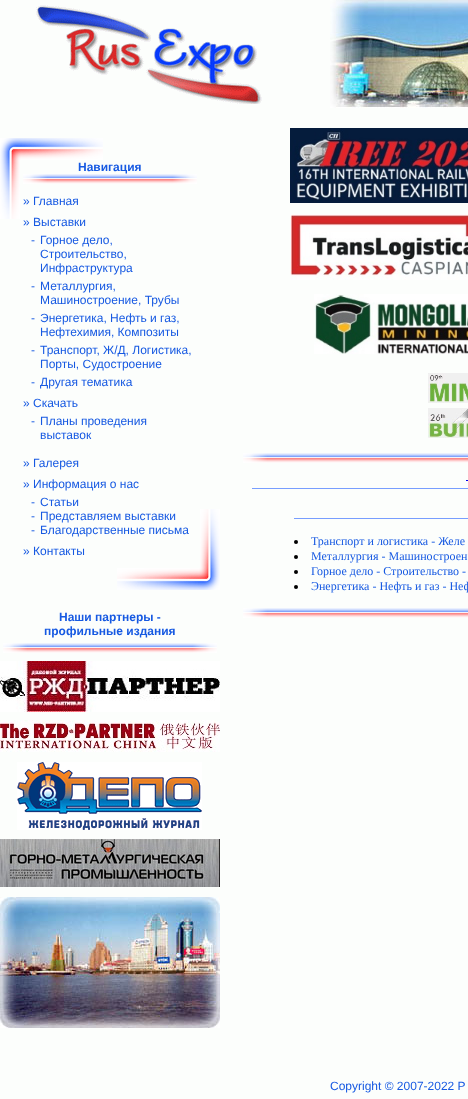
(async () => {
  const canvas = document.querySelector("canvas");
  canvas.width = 468;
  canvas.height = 1099;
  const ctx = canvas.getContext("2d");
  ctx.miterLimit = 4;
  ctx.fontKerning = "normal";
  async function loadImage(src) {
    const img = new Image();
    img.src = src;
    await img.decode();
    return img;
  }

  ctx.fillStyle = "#fcfefc";
  ctx.fillRect(0, 0, 468, 1099);
  ctx.drawImage(await loadImage("img/1.png"), 36, 5, 226, 99);
  ctx.drawImage(await loadImage("img/2.png"), 330, 0, 138, 108);
  ctx.drawImage(await loadImage("img/3.png"), 0, 138, 103, 22);
  ctx.drawImage(await loadImage("img/4.png"), 0, 160, 20, 59);
  ctx.drawImage(await loadImage("img/5.png"), 23, 174, 24, 10);
  ctx.drawImage(await loadImage("img/6.png"), 47, 174, 126, 10);
  ctx.drawImage(await loadImage("img/7.png"), 173, 174, 24, 10);
  ctx.drawImage(await loadImage("img/8.png"), 200, 509, 20, 59);
  ctx.drawImage(await loadImage("img/9.png"), 117, 568, 103, 22);
  ctx.drawImage(await loadImage("img/5.png"), 3, 643, 24, 10);
  ctx.drawImage(await loadImage("img/10.png"), 27, 643, 166, 10);
  ctx.drawImage(await loadImage("img/7.png"), 193, 643, 24, 10);
  ctx.drawImage(await loadImage("img/11.png"), 0, 661, 220, 51);
  ctx.drawImage(await loadImage("img/12.png"), 0, 720, 220, 32);
  ctx.drawImage(await loadImage("img/13.png"), 17, 762, 185, 68);
  ctx.drawImage(await loadImage("img/14.png"), 0, 839, 220, 48);
  ctx.drawImage(await loadImage("img/15.png"), 0, 897, 220, 131);
  ctx.drawImage(await loadImage("img/16.png"), 290, 128, 178, 75);
  ctx.drawImage(await loadImage("img/17.png"), 290, 214, 178, 66);
  ctx.drawImage(await loadImage("img/18.png"), 314, 294, 154, 60);
  ctx.drawImage(await loadImage("img/19.png"), 428, 373, 40, 30);
  ctx.drawImage(await loadImage("img/20.png"), 428, 408, 40, 30);
  ctx.drawImage(await loadImage("img/5.png"), 243, 453, 24, 10);
  ctx.drawImage(await loadImage("img/21.png"), 267, 453, 201, 10);
  for (const [x, y, w, h, color] of [
    [466, 480, 2, 1, "#0000ee"],
    [252, 488, 216, 1, "#789eff"],
    [294, 518, 174, 1, "#789eff"],
  ]) {
    ctx.fillStyle = color;
    ctx.fillRect(x, y, w, h);
  }
  ctx.fillStyle = "#000000";
  ctx.beginPath();
  ctx.arc(296, 542, 2, 0, Math.PI * 2);
  ctx.fill();
  ctx.beginPath();
  ctx.arc(296, 557, 2, 0, Math.PI * 2);
  ctx.fill();
  ctx.beginPath();
  ctx.arc(296, 572, 2, 0, Math.PI * 2);
  ctx.fill();
  ctx.beginPath();
  ctx.arc(296, 587, 2, 0, Math.PI * 2);
  ctx.fill();
  ctx.drawImage(await loadImage("img/5.png"), 243, 608, 24, 10);
  ctx.drawImage(await loadImage("img/21.png"), 267, 608, 201, 10);
  ctx.font = "bold 12px Liberation Sans";
  ctx.fillStyle = "#1659e2";
  ctx.fillText("Навигация", 78, 171);
  ctx.font = "12px Liberation Sans";
  for (const [text, x, y] of [
    ["» Главная", 23, 205],
    ["» Выставки", 23, 226],
    ["-", 31, 244],
    ["Горное дело,", 40, 244],
    ["Строительство,", 40, 258],
    ["Инфраструктура", 40, 272],
    ["-", 31, 290],
    ["Металлургия,", 40, 290],
    ["Машиностроение, Трубы", 40, 304],
    ["-", 31, 322],
    ["Энергетика, Нефть и газ,", 40, 322],
    ["Нефтехимия, Композиты", 40, 336],
    ["-", 31, 354],
    ["Транспорт, Ж/Д, Логистика,", 40, 354],
    ["Порты, Судостроение", 40, 368],
    ["-", 31, 386],
    ["Другая тематика", 40, 386],
    ["» Скачать", 23, 407],
    ["-", 31, 425],
    ["Планы проведения", 40, 425],
    ["выставок", 40, 439],
    ["» Галерея", 23, 467],
    ["» Информация о нас", 23, 488],
    ["-", 31, 506],
    ["Статьи", 40, 506],
    ["-", 31, 520],
    ["Представляем выставки", 40, 520],
    ["-", 31, 534],
    ["Благодарственные письма", 40, 534],
    ["» Контакты", 23, 555],
  ]) {
    ctx.fillText(text, x, y);
  }
  ctx.font = "bold 12px Liberation Sans";
  ctx.fillText("Наши партнеры -", 59, 621);
  ctx.fillText("профильные издания", 44, 635);
  ctx.font = "12px Liberation Serif";
  for (const [text, x, y] of [
    ["Транспорт и логистика - Желе", 311, 545],
    ["Металлургия - Машиностроен", 311, 560],
    ["Горное дело - Строительство -", 311, 575],
    ["Энергетика - Нефть и газ - Неф", 311, 590],
  ]) {
    ctx.fillText(text, x, y);
  }
  ctx.font = "12px Liberation Sans";
  ctx.fillText("Copyright © 2007-2022 Р", 330, 1090);
})();
